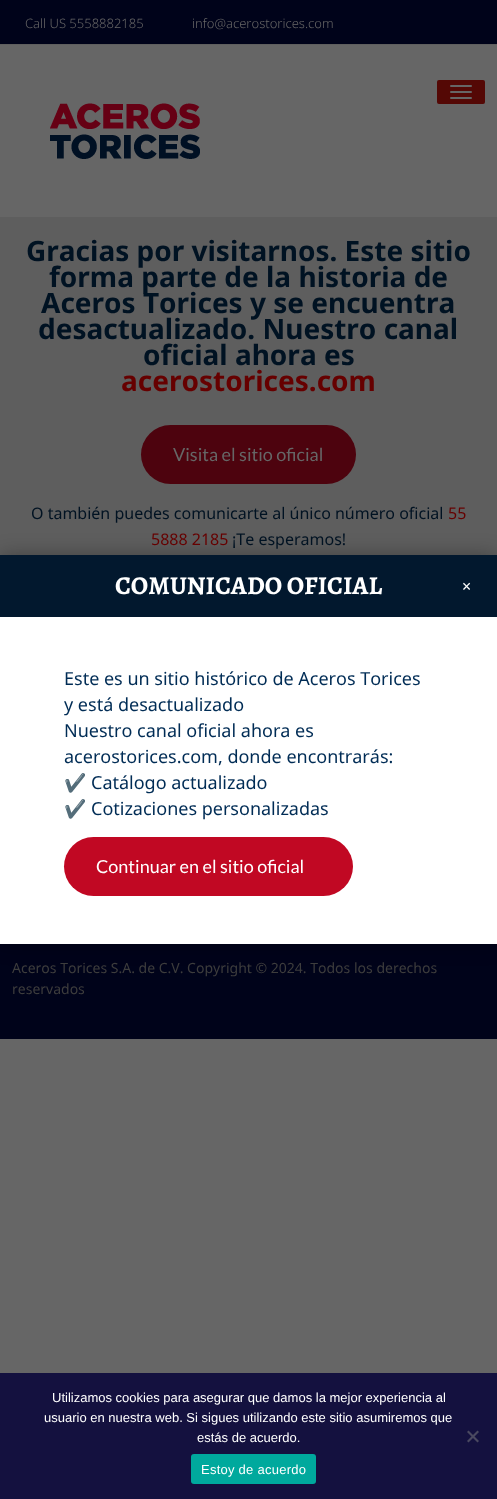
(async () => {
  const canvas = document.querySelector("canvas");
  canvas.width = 497;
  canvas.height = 1499;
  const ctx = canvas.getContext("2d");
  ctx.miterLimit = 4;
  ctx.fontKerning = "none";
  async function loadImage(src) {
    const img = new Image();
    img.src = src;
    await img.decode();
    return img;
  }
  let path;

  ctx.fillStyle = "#666666";
  ctx.fillRect(0, 0, 497, 1499);
  ctx.fillStyle = "#00031a";
  ctx.fillRect(0, 0, 497, 44);
  ctx.fillStyle = "#5f5f5f";
  ctx.fillRect(0, 44, 497, 1);
  ctx.fillStyle = "#540805";
  ctx.beginPath();
  ctx.roundRect(437, 80, 48, 24, 2);
  ctx.fill();
  ctx.fillStyle = "#666666";
  ctx.beginPath();
  ctx.roundRect(450, 85, 22, 2, 1);
  ctx.fill();
  ctx.beginPath();
  ctx.roundRect(450, 91, 22, 2, 1);
  ctx.fill();
  ctx.beginPath();
  ctx.roundRect(450, 97, 22, 2, 1);
  ctx.fill();
  ctx.drawImage(await loadImage("img/1.png"), 50, 103, 150, 56);
  ctx.fillStyle = "#5e5e5e";
  ctx.fillRect(0, 217, 497, 338);
  ctx.fillStyle = "#4d030e";
  ctx.beginPath();
  ctx.roundRect(141, 425, 215, 59, 29.5);
  ctx.fill();
  ctx.fillStyle = "#00031a";
  ctx.fillRect(0, 944, 497, 95);
  ctx.fillStyle = "#14113f";
  ctx.fillRect(0, 1373, 497, 126);
  ctx.fillStyle = "#4a4960";
  path = new Path2D("M477.5 1430.5L479 1432L468.5 1442.5L467 1441Z");
  ctx.fill(path);
  path = new Path2D("M467 1432L468.5 1430.5L479 1441L477.5 1442.5Z");
  ctx.fill(path);
  ctx.fillStyle = "#00a99d";
  ctx.beginPath();
  ctx.roundRect(191, 1454, 125, 30, 3);
  ctx.fill();
  ctx.fillStyle = "rgba(0, 0, 0, 0.3)";
  ctx.filter = "blur(10px)";
  ctx.beginPath();
  ctx.rect(0, 555, 497, 389);
  ctx.fill();
  ctx.filter = "none";
  ctx.fillStyle = "#ffffff";
  ctx.fillRect(0, 617, 497, 327);
  ctx.fillStyle = "#02182e";
  ctx.fillRect(0, 555, 497, 62);
  ctx.fillStyle = "#c10823";
  ctx.beginPath();
  ctx.roundRect(64, 837, 289, 59, 29.5);
  ctx.fill();
  ctx.font = "300 13px Noto Sans";
  ctx.fillStyle = "#666666";
  ctx.fillText("Call US 5558882185", 25, 28);
  ctx.fillText("info@acerostorices.com", 192, 28);
  ctx.font = "bold 28px Noto Sans";
  ctx.fillStyle = "#001222";
  for (const [text, x, y] of [
    ["Gracias por visitarnos. Este sitio", 26, 261],
    ["forma parte de la historia de", 49, 287],
    ["Aceros Torices y se encuentra", 41, 313],
    ["desactualizado. Nuestro canal", 38, 339],
    ["oficial ahora es", 143, 365],
  ]) {
    ctx.fillText(text, x, y);
  }
  ctx.fillStyle = "#660000";
  ctx.fillText("acerostorices.com", 121, 391);
  ctx.font = "18px Lato";
  ctx.fillStyle = "#666666";
  ctx.fillText("Visita el sitio oficial", 173, 461);
  ctx.font = "16px Noto Sans";
  ctx.fillStyle = "#001222";
  ctx.fillText("O también puedes comunicarte al único número oficial", 31, 519);
  ctx.fillStyle = "#660000";
  ctx.fillText("55", 448, 519);
  ctx.fillText("5888 2185", 151, 545);
  ctx.fillStyle = "#001222";
  ctx.fillText("¡Te esperamos!", 232, 545);
  ctx.font = "14px Noto Sans";
  ctx.fillStyle = "#3d3d3d";
  ctx.fillText("Aceros Torices S.A. de C.V. Copyright © 2024. Todos", 12, 973);
  ctx.fillText("los derechos", 354, 973);
  ctx.fillText("reservados", 12, 994);
  ctx.font = "13px Liberation Sans";
  ctx.fillStyle = "#ffffff";
  for (const [text, x, y] of [
    ["Utilizamos cookies para asegurar que damos la mejor experiencia al", 52, 1402],
    ["usuario en nuestra web. Si sigues utilizando este sitio asumiremos que", 44, 1422],
    ["estás de acuerdo.", 197, 1442],
  ]) {
    ctx.fillText(text, x, y);
  }
  ctx.letterSpacing = "0.25px";
  ctx.fillText("Estoy de acuerdo", 201, 1474);
  ctx.letterSpacing = "0px";
  ctx.font = "bold 25.75px Alegreya";
  ctx.fillText("COMUNICADO OFICIAL", 115, 594);
  ctx.font = "16px Noto Sans";
  ctx.fillText("×", 462, 592);
  ctx.font = "18px Noto Sans";
  ctx.fillStyle = "#002c55";
  for (const [text, x, y] of [
    ["Este es un sitio histórico de Aceros Torices", 64, 685],
    ["y está desactualizado", 64, 711],
    ["Nuestro canal oficial ahora es", 64, 737],
    ["acerostorices.com, donde encontrarás:", 64, 763],
  ]) {
    ctx.fillText(text, x, y);
  }
  ctx.font = "18px Noto Color Emoji";
  ctx.fillText("✔", 64, 789);
  ctx.font = "18px Noto Sans";
  ctx.fillText("Catálogo actualizado", 91, 789);
  ctx.font = "18px Noto Color Emoji";
  ctx.fillText("✔", 64, 815);
  ctx.font = "18px Noto Sans";
  ctx.fillText("Cotizaciones personalizadas", 91, 815);
  ctx.font = "18px Lato";
  ctx.fillStyle = "#ffffff";
  ctx.fillText("Continuar en el sitio oficial", 96, 873);
})();
